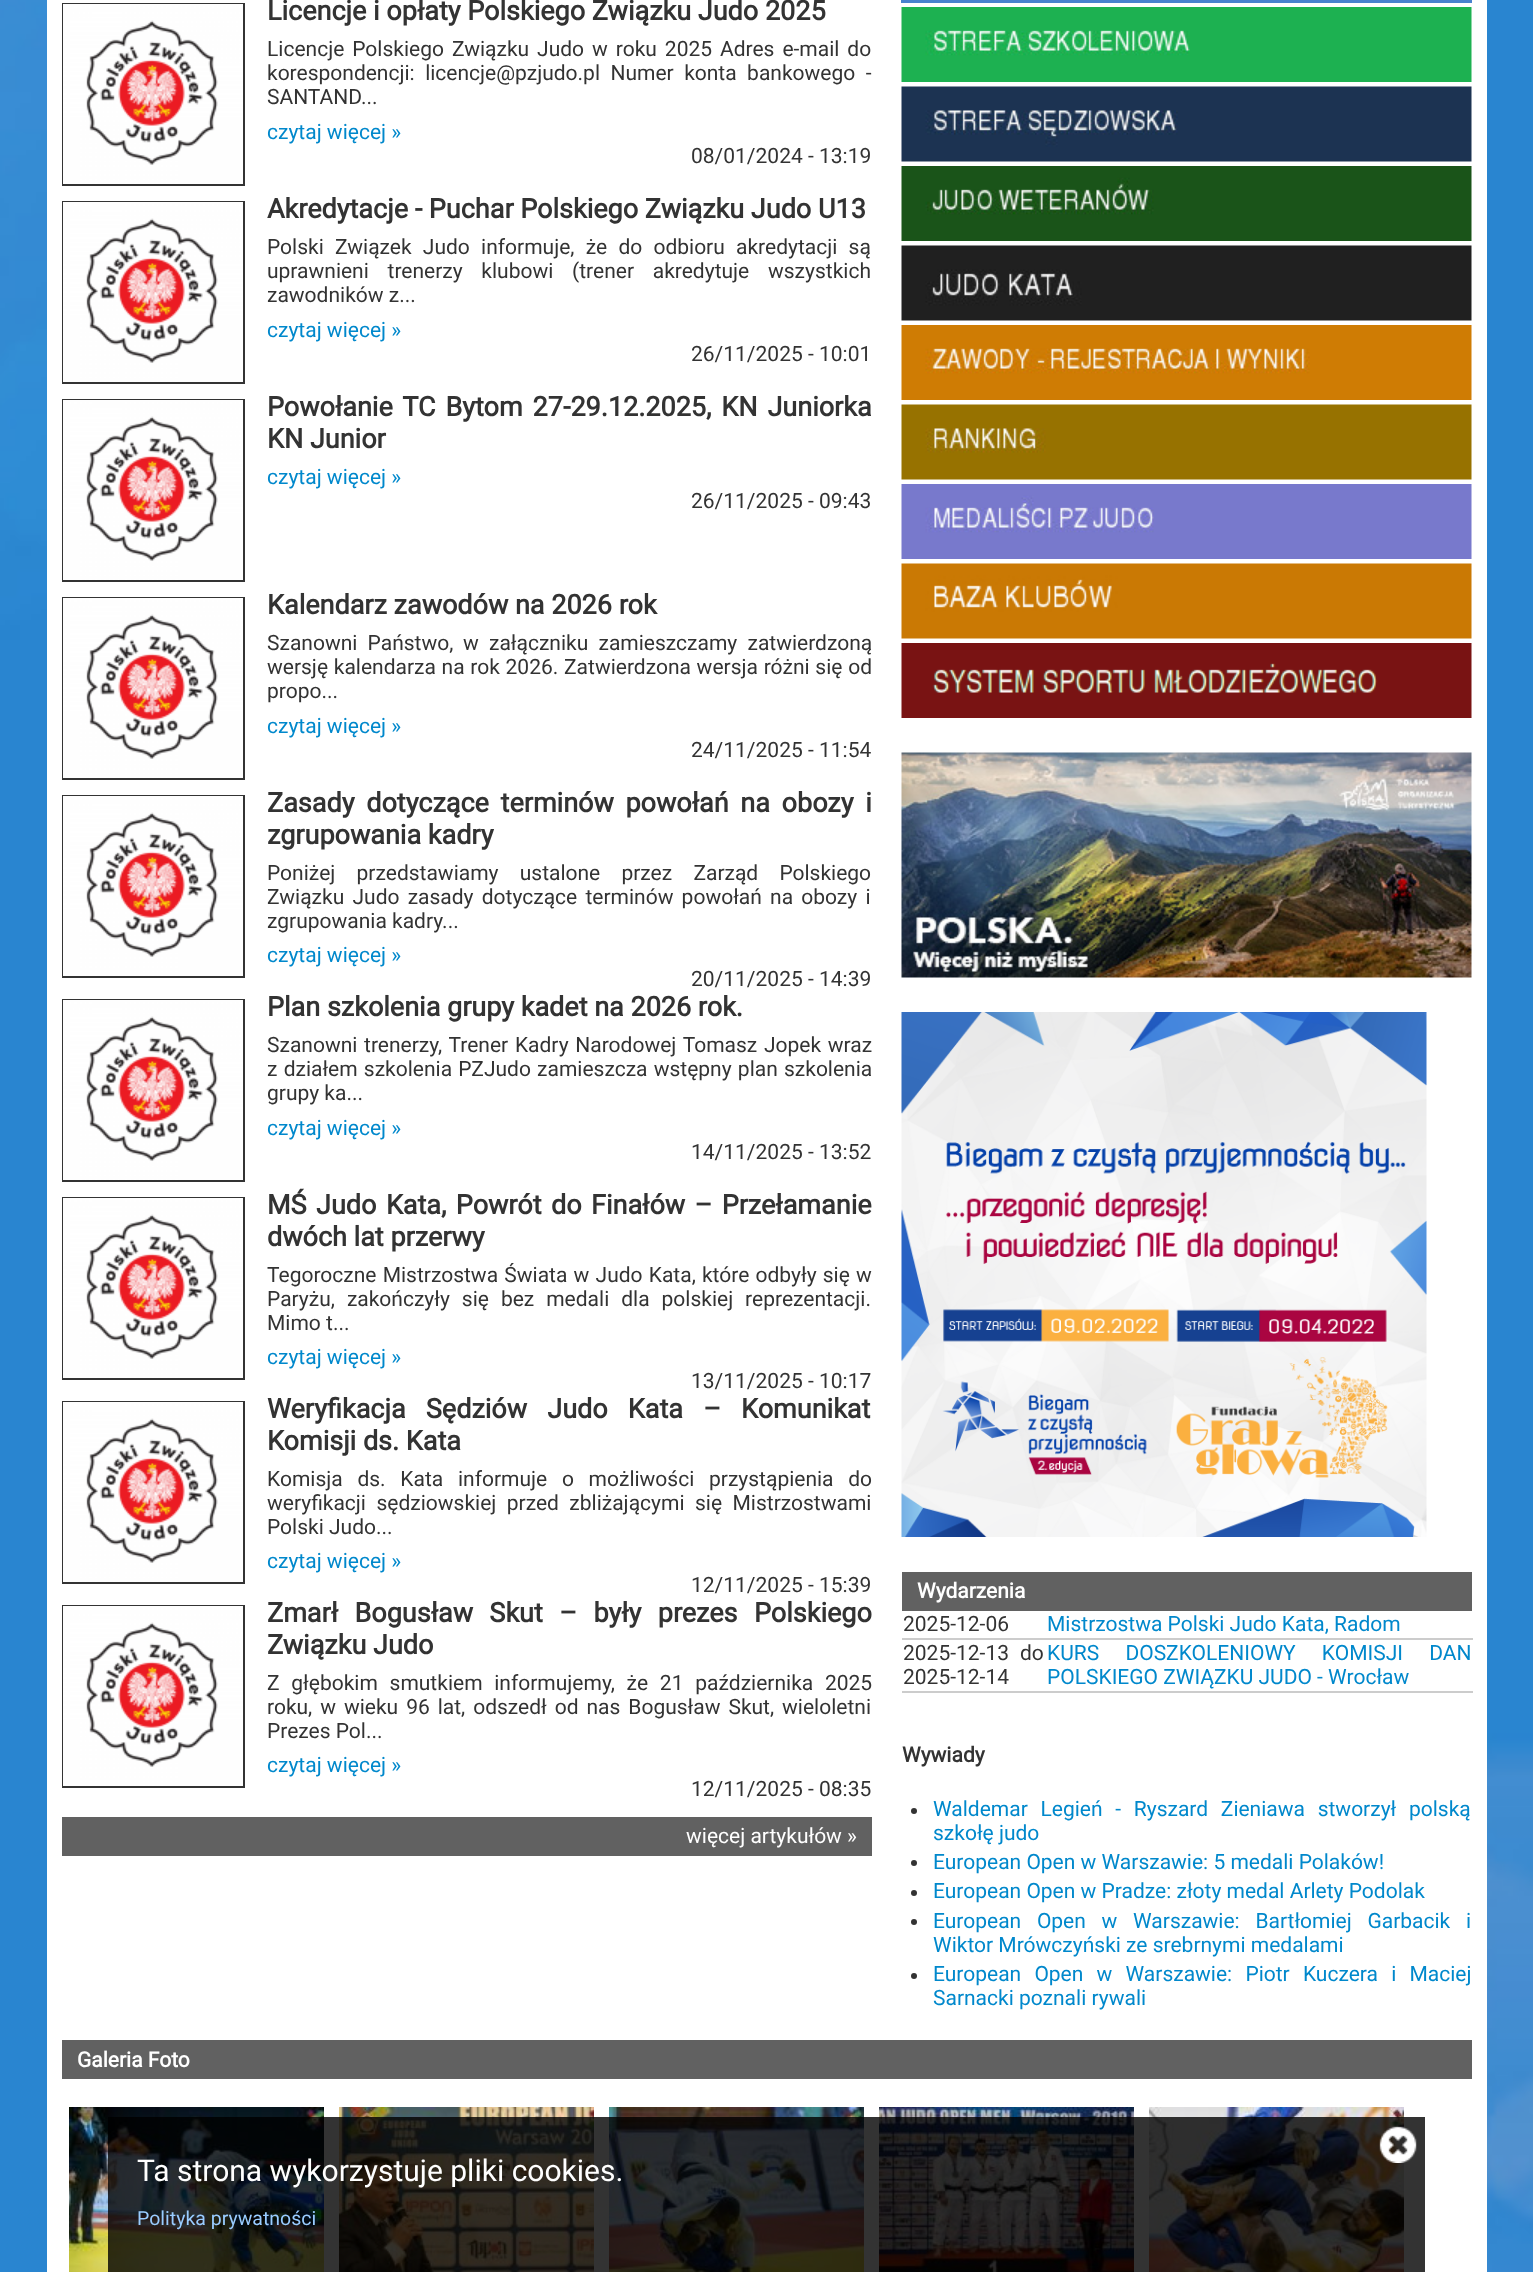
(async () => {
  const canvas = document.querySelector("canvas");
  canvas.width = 1533;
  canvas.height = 2272;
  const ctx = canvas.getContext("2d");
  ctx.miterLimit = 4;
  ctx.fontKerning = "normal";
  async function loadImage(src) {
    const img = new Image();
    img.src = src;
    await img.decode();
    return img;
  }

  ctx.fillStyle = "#ffffff";
  ctx.fillRect(0, 0, 1533, 2272);
  ctx.drawImage(await loadImage("img/1.png"), 0, 0, 1533, 2272);
  ctx.fillRect(47, 0, 1440, 2272);
  ctx.strokeStyle = "#333333";
  ctx.lineWidth = 2;
  ctx.strokeRect(63, 4, 181, 181);
  ctx.drawImage(await loadImage("img/2.png"), 63, 4, 180, 180);
  ctx.strokeRect(63, 202, 181, 181);
  ctx.drawImage(await loadImage("img/2.png"), 63, 202, 180, 180);
  ctx.strokeRect(63, 400, 181, 181);
  ctx.drawImage(await loadImage("img/2.png"), 63, 400, 180, 180);
  ctx.strokeRect(63, 598, 181, 181);
  ctx.drawImage(await loadImage("img/2.png"), 63, 598, 180, 180);
  ctx.strokeRect(63, 796, 181, 181);
  ctx.drawImage(await loadImage("img/2.png"), 63, 796, 180, 180);
  ctx.strokeRect(63, 1000, 181, 181);
  ctx.drawImage(await loadImage("img/2.png"), 63, 1000, 180, 180);
  ctx.strokeRect(63, 1198, 181, 181);
  ctx.drawImage(await loadImage("img/2.png"), 63, 1198, 180, 180);
  ctx.strokeRect(63, 1402, 181, 181);
  ctx.drawImage(await loadImage("img/2.png"), 63, 1402, 180, 180);
  ctx.strokeRect(63, 1606, 181, 181);
  ctx.drawImage(await loadImage("img/2.png"), 63, 1606, 180, 180);
  ctx.fillStyle = "#616161";
  ctx.fillRect(62, 1817, 810, 39);
  ctx.fillStyle = "#4982cf";
  ctx.fillRect(901, 0, 571, 3);
  ctx.drawImage(await loadImage("img/3.png"), 901, 7, 571, 75);
  ctx.drawImage(await loadImage("img/4.png"), 901, 86, 571, 76);
  ctx.drawImage(await loadImage("img/5.png"), 901, 166, 571, 75);
  ctx.drawImage(await loadImage("img/6.png"), 901, 245, 571, 76);
  ctx.drawImage(await loadImage("img/7.png"), 901, 325, 571, 75);
  ctx.drawImage(await loadImage("img/8.png"), 901, 404, 571, 76);
  ctx.drawImage(await loadImage("img/9.png"), 901, 484, 571, 75);
  ctx.drawImage(await loadImage("img/10.png"), 901, 563, 571, 76);
  ctx.drawImage(await loadImage("img/11.png"), 901, 643, 571, 75);
  ctx.drawImage(await loadImage("img/12.png"), 901, 752, 571, 226);
  ctx.drawImage(await loadImage("img/13.png"), 901, 1012, 526, 525);
  for (const [x, y, w, h, color] of [
    [902, 1572, 570, 39, "#616161"],
    [902, 1638, 571, 2, "#cccccc"],
    [902, 1691, 571, 2, "#cccccc"],
  ]) {
    ctx.fillStyle = color;
    ctx.fillRect(x, y, w, h);
  }
  ctx.fillStyle = "#333333";
  ctx.beginPath();
  ctx.arc(914, 1811, 3, 0, Math.PI * 2);
  ctx.fill();
  ctx.beginPath();
  ctx.arc(914, 1863, 3, 0, Math.PI * 2);
  ctx.fill();
  ctx.beginPath();
  ctx.arc(914, 1893, 3, 0, Math.PI * 2);
  ctx.fill();
  ctx.beginPath();
  ctx.arc(914, 1922, 3, 0, Math.PI * 2);
  ctx.fill();
  ctx.beginPath();
  ctx.arc(914, 1976, 3, 0, Math.PI * 2);
  ctx.fill();
  ctx.fillStyle = "#616161";
  ctx.fillRect(62, 2040, 1410, 39);
  ctx.drawImage(await loadImage("img/14.png"), 69, 2107, 255, 165);
  ctx.drawImage(await loadImage("img/15.png"), 339, 2107, 255, 165);
  ctx.drawImage(await loadImage("img/16.png"), 609, 2107, 255, 165);
  ctx.drawImage(await loadImage("img/17.png"), 879, 2107, 255, 165);
  ctx.drawImage(await loadImage("img/18.png"), 1149, 2107, 255, 165);
  ctx.fillStyle = "rgba(0, 0, 0, 0.8)";
  ctx.fillRect(108, 2117, 1317, 155);
  ctx.drawImage(await loadImage("img/19.png"), 1379, 2126, 38, 37);
  ctx.font = "bold 27px Roboto";
  ctx.fillStyle = "#333333";
  ctx.fillText("Licencje i opłaty Polskiego Związku Judo 2025", 267, 20);
  ctx.wordSpacing = "2.75px";
  ctx.font = "21px Roboto";
  ctx.fillText("Licencje Polskiego Związku Judo w roku 2025", 267, 56);
  ctx.fillText("Adres e-mail do", 720, 56);
  ctx.wordSpacing = "5.25px";
  ctx.fillText("korespondencji: licencje@pzjudo.pl Numer konta bankowego -", 267, 80);
  ctx.wordSpacing = "0px";
  ctx.fillText("SANTAND...", 267, 104);
  ctx.fillStyle = "#0088cc";
  ctx.fillText("czytaj więcej »", 267, 139);
  ctx.fillStyle = "#333333";
  ctx.fillText("08/01/2024 - 13:19", 691, 163);
  ctx.font = "bold 27px Roboto";
  ctx.fillText("Akredytacje - Puchar Polskiego Związku Judo U13", 267, 218);
  ctx.wordSpacing = "6px";
  ctx.font = "21px Roboto";
  ctx.fillText("Polski Związek Judo informuje, że do odbioru akredytacji są", 267, 254);
  ctx.wordSpacing = "13.5px";
  ctx.fillText("uprawnieni trenerzy klubowi (trener akredytuje wszystkich", 267, 278);
  ctx.wordSpacing = "0px";
  ctx.fillText("zawodników z...", 267, 302);
  ctx.fillStyle = "#0088cc";
  ctx.fillText("czytaj więcej »", 267, 337);
  ctx.fillStyle = "#333333";
  ctx.fillText("26/11/2025 - 10:01", 691, 361);
  ctx.wordSpacing = "3.25px";
  ctx.font = "bold 27px Roboto";
  ctx.fillText("Powołanie TC Bytom 27-29.12.2025, KN Juniorka", 267, 416);
  ctx.wordSpacing = "0px";
  ctx.fillText("KN Junior", 267, 448);
  ctx.font = "21px Roboto";
  ctx.fillStyle = "#0088cc";
  ctx.fillText("czytaj więcej »", 267, 484);
  ctx.fillStyle = "#333333";
  ctx.fillText("26/11/2025 - 09:43", 691, 508);
  ctx.font = "bold 27px Roboto";
  ctx.fillText("Kalendarz zawodów na 2026 rok", 267, 614);
  ctx.wordSpacing = "5px";
  ctx.font = "21px Roboto";
  ctx.fillText("Szanowni Państwo,", 267, 650);
  ctx.fillText("w załączniku zamieszczamy zatwierdzoną", 463, 650);
  ctx.wordSpacing = "0.5px";
  ctx.fillText("wersję kalendarza na rok 2026. Zatwierdzona wersja różni się od", 267, 674);
  ctx.wordSpacing = "0px";
  ctx.fillText("propo...", 267, 698);
  ctx.fillStyle = "#0088cc";
  ctx.fillText("czytaj więcej »", 267, 733);
  ctx.fillStyle = "#333333";
  ctx.fillText("24/11/2025 - 11:54", 691, 757);
  ctx.wordSpacing = "5px";
  ctx.font = "bold 27px Roboto";
  ctx.fillText("Zasady dotyczące terminów powołań na obozy i", 267, 812);
  ctx.wordSpacing = "0px";
  ctx.fillText("zgrupowania kadry", 267, 844);
  ctx.wordSpacing = "16px";
  ctx.font = "21px Roboto";
  ctx.fillText("Poniżej przedstawiamy ustalone przez Zarząd Polskiego", 267, 880);
  ctx.wordSpacing = "3px";
  ctx.fillText("Związku Judo zasady dotyczące terminów powołań na obozy i", 267, 904);
  ctx.wordSpacing = "0px";
  ctx.fillText("zgrupowania kadry...", 267, 928);
  ctx.fillStyle = "#0088cc";
  ctx.fillText("czytaj więcej »", 267, 962);
  ctx.fillStyle = "#333333";
  ctx.fillText("20/11/2025 - 14:39", 691, 986);
  ctx.font = "bold 27px Roboto";
  ctx.fillText("Plan szkolenia grupy kadet na 2026 rok.", 267, 1016);
  ctx.wordSpacing = "1.5px";
  ctx.font = "21px Roboto";
  ctx.fillText("Szanowni trenerzy, Trener Kadry Narodowej Tomasz Jopek wraz", 267, 1052);
  ctx.wordSpacing = "1px";
  ctx.fillText("z działem szkolenia PZJudo zamieszcza wstępny plan szkolenia", 267, 1076);
  ctx.wordSpacing = "0px";
  ctx.fillText("grupy ka...", 267, 1100);
  ctx.fillStyle = "#0088cc";
  ctx.fillText("czytaj więcej »", 267, 1135);
  ctx.fillStyle = "#333333";
  ctx.fillText("14/11/2025 - 13:52", 691, 1159);
  ctx.wordSpacing = "2.75px";
  ctx.font = "bold 27px Roboto";
  ctx.fillText("MŚ Judo Kata, Powrót do Finałów – Przełamanie", 267, 1214);
  ctx.wordSpacing = "0px";
  ctx.fillText("dwóch lat przerwy", 267, 1246);
  ctx.wordSpacing = "1px";
  ctx.font = "21px Roboto";
  ctx.fillText("Tegoroczne Mistrzostwa Świata w Judo Kata, które odbyły się w", 267, 1282);
  ctx.wordSpacing = "6.75px";
  ctx.fillText("Paryżu, zakończyły się bez medali dla polskiej reprezentacji.", 267, 1306);
  ctx.wordSpacing = "0px";
  ctx.fillText("Mimo t...", 267, 1330);
  ctx.fillStyle = "#0088cc";
  ctx.fillText("czytaj więcej »", 267, 1364);
  ctx.fillStyle = "#333333";
  ctx.fillText("13/11/2025 - 10:17", 691, 1388);
  ctx.wordSpacing = "13.5px";
  ctx.font = "bold 27px Roboto";
  ctx.fillText("Weryfikacja Sędziów Judo Kata – Komunikat", 267, 1418);
  ctx.wordSpacing = "0px";
  ctx.fillText("Komisji ds. Kata", 267, 1450);
  ctx.wordSpacing = "9.5px";
  ctx.font = "21px Roboto";
  ctx.fillText("Komisja ds. Kata informuje o możliwości przystąpienia do", 267, 1486);
  ctx.wordSpacing = "5.25px";
  ctx.fillText("weryfikacji sędziowskiej przed zbliżającymi się Mistrzostwami", 267, 1510);
  ctx.wordSpacing = "0px";
  ctx.fillText("Polski Judo...", 267, 1534);
  ctx.fillStyle = "#0088cc";
  ctx.fillText("czytaj więcej »", 267, 1568);
  ctx.fillStyle = "#333333";
  ctx.fillText("12/11/2025 - 15:39", 691, 1592);
  ctx.wordSpacing = "9.75px";
  ctx.font = "bold 27px Roboto";
  ctx.fillText("Zmarł Bogusław Skut – były prezes Polskiego", 267, 1622);
  ctx.wordSpacing = "0px";
  ctx.fillText("Związku Judo", 267, 1654);
  ctx.wordSpacing = "6.5px";
  ctx.font = "21px Roboto";
  ctx.fillText("Z głębokim smutkiem informujemy, że 21 października 2025", 267, 1690);
  ctx.wordSpacing = "2.75px";
  ctx.fillText("roku, w wieku 96 lat, odszedł od nas Bogusław Skut, wieloletni", 267, 1714);
  ctx.wordSpacing = "0px";
  ctx.fillText("Prezes Pol...", 267, 1738);
  ctx.fillStyle = "#0088cc";
  ctx.fillText("czytaj więcej »", 267, 1772);
  ctx.fillStyle = "#333333";
  ctx.fillText("12/11/2025 - 08:35", 691, 1796);
  ctx.fillStyle = "#ffffff";
  ctx.fillText("więcej artykułów »", 686, 1843);
  ctx.font = "bold 21px Roboto";
  ctx.fillText("Wydarzenia", 917, 1598);
  ctx.font = "21px Roboto";
  ctx.fillStyle = "#333333";
  ctx.fillText("2025-12-06", 903, 1631);
  ctx.fillStyle = "#0088cc";
  ctx.fillText("Mistrzostwa Polski Judo Kata, Radom", 1047, 1631);
  ctx.fillStyle = "#333333";
  for (const [text, x, y] of [
    ["2025-12-13", 903, 1660],
    ["do", 1020, 1660],
    ["2025-12-14", 903, 1684],
  ]) {
    ctx.fillText(text, x, y);
  }
  ctx.wordSpacing = "21px";
  ctx.fillStyle = "#0088cc";
  ctx.fillText("KURS DOSZKOLENIOWY KOMISJI DAN", 1047, 1660);
  ctx.wordSpacing = "0px";
  ctx.fillText("POLSKIEGO ZWIĄZKU JUDO - Wrocław", 1047, 1684);
  ctx.font = "bold 21px Roboto";
  ctx.fillStyle = "#333333";
  ctx.fillText("Wywiady", 902, 1762);
  ctx.wordSpacing = "7.5px";
  ctx.font = "21px Roboto";
  ctx.fillStyle = "#0088cc";
  ctx.fillText("Waldemar Legień - Ryszard Zieniawa stworzył polską", 933, 1816);
  ctx.wordSpacing = "0px";
  for (const [text, x, y] of [
    ["szkołę judo", 933, 1840],
    ["European Open w Warszawie: 5 medali Polaków!", 933, 1869],
    ["European Open w Pradze: złoty medal Arlety Podolak", 933, 1898],
  ]) {
    ctx.fillText(text, x, y);
  }
  ctx.wordSpacing = "10.5px";
  ctx.fillText("European Open w Warszawie: Bartłomiej Garbacik i", 933, 1928);
  ctx.wordSpacing = "0px";
  ctx.fillText("Wiktor Mrówczyński ze srebrnymi medalami", 933, 1952);
  ctx.wordSpacing = "8px";
  ctx.fillText("European Open w Warszawie: Piotr Kuczera i Maciej", 933, 1981);
  ctx.wordSpacing = "0px";
  ctx.fillText("Sarnacki poznali rywali", 933, 2005);
  ctx.font = "bold 21px Roboto";
  ctx.fillStyle = "#ffffff";
  ctx.fillText("Galeria Foto", 77, 2067);
  ctx.font = "30px Roboto";
  ctx.fillText("Ta strona wykorzystuje pliki cookies.", 137, 2181);
  ctx.font = "19.5px Roboto";
  ctx.fillStyle = "#99ccff";
  ctx.fillText("Polityka prywatności", 137, 2225);
})();
